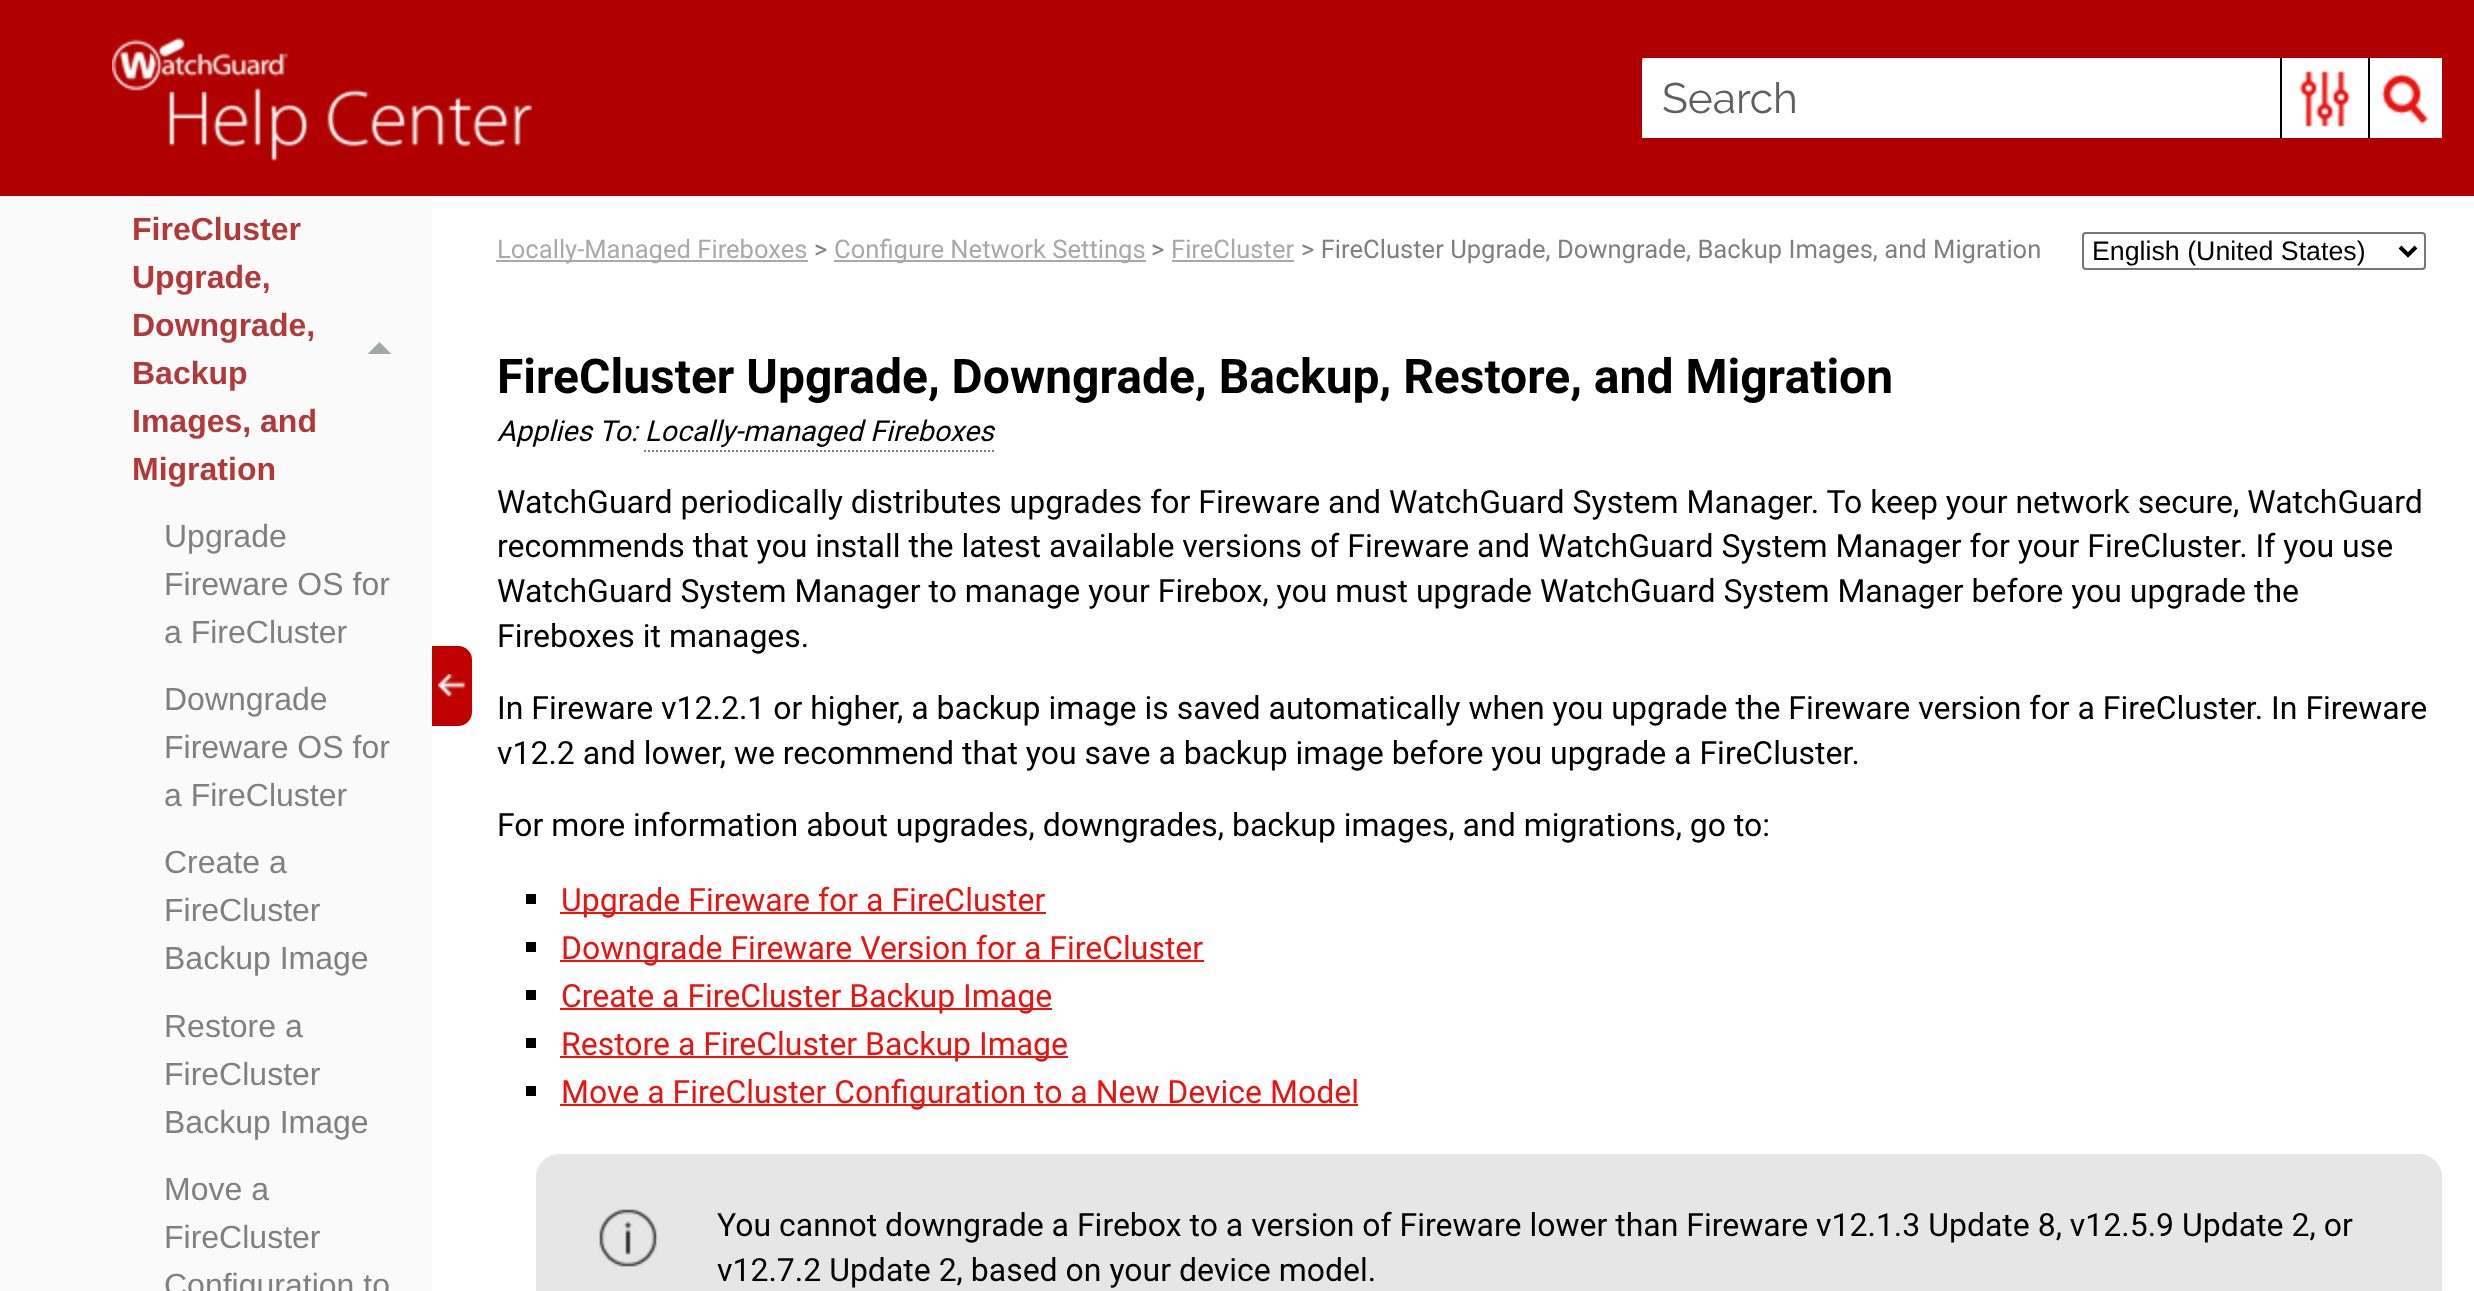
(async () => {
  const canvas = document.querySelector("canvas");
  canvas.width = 2474;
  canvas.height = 1291;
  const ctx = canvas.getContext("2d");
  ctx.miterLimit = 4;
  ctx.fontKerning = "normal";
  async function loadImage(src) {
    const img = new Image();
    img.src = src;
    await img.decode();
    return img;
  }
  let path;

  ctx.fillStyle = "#ffffff";
  ctx.fillRect(0, 0, 2474, 1291);
  ctx.fillStyle = "#b10000";
  ctx.fillRect(0, 0, 2474, 196);
  ctx.drawImage(await loadImage("img/1.png"), 112, 37, 420, 124);
  ctx.fillStyle = "#ffffff";
  ctx.beginPath();
  ctx.roundRect(1642, 58, 800, 80, [2, 0, 0, 0]);
  ctx.fill();
  ctx.drawImage(await loadImage("img/2.png"), 2299, 71, 52, 56);
  ctx.fillStyle = "#000000";
  ctx.fillRect(2368, 58, 2, 80);
  ctx.fillRect(2280, 58, 2, 80);
  ctx.drawImage(await loadImage("img/3.png"), 2381, 73, 48, 52);
  ctx.fillStyle = "#fafafa";
  ctx.fillRect(0, 196, 432, 1095);
  ctx.fillStyle = "#a1a8ac";
  path = new Path2D("M391.5 354H367.5L379.5 342Z");
  ctx.fill(path);
  for (const [x, y, w, h, color] of [
    [496, 260, 312, 2, "#a9a9a9"],
    [834, 260, 312, 2, "#a9a9a9"],
    [1172, 260, 122, 2, "#a9a9a9"],
  ]) {
    ctx.fillStyle = color;
    ctx.fillRect(x, y, w, h);
  }
  ctx.beginPath();
  ctx.roundRect(2083, 233, 342, 36, 3);
  ctx.strokeStyle = "#767676";
  ctx.lineWidth = 2;
  ctx.stroke();
  path = new Path2D("M2400 247L2408 255L2416 247");
  ctx.strokeStyle = "#000000";
  ctx.lineWidth = 4;
  ctx.stroke(path);
  ctx.fillStyle = "#c00000";
  ctx.beginPath();
  ctx.roundRect(432, 646, 40, 80, [0, 14, 14, 0]);
  ctx.fill();
  ctx.drawImage(await loadImage("img/4.png"), 438, 674, 28, 23);
  path = new Path2D("M644 451H994");
  ctx.strokeStyle = "#808080";
  ctx.lineWidth = 2;
  ctx.setLineDash([2, 2]);
  ctx.stroke(path);
  for (const [x, y, w, h, color] of [
    [526, 894, 10, 10, "#000000"],
    [560, 912, 486, 2, "#e81410"],
    [526, 942, 10, 10, "#000000"],
    [560, 960, 644, 2, "#e81410"],
    [526, 990, 10, 10, "#000000"],
    [560, 1008, 492, 2, "#e81410"],
    [526, 1038, 10, 10, "#000000"],
    [560, 1056, 508, 2, "#e81410"],
    [526, 1086, 10, 10, "#000000"],
    [560, 1104, 798, 2, "#e81410"],
  ]) {
    ctx.fillStyle = color;
    ctx.fillRect(x, y, w, h);
  }
  ctx.fillStyle = "#e6e6e6";
  path = new Path2D("M560 1154H2418C2431.5 1154 2442 1164.5 2442 1178V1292H536V1178C536 1164.5 546.5 1154 560 1154Z");
  ctx.fill(path);
  ctx.drawImage(await loadImage("img/5.png"), 599, 1209, 60, 58);
  ctx.beginPath();
  ctx.roundRect(546, 1164, 1886, 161, 14);
  ctx.strokeStyle = "#e6e6e6";
  ctx.lineWidth = 20;
  ctx.setLineDash([]);
  ctx.stroke();
  ctx.font = "42.5px Raleway";
  ctx.fillStyle = "#5f5f5f";
  ctx.fillText("Search", 1662, 113);
  ctx.font = "bold 32px Liberation Sans";
  ctx.fillStyle = "#b33939";
  for (const [text, x, y] of [
    ["FireCluster", 132, 240],
    ["Upgrade,", 132, 288],
    ["Downgrade,", 132, 336],
    ["Backup", 132, 384],
    ["Images, and", 132, 432],
    ["Migration", 132, 480],
  ]) {
    ctx.fillText(text, x, y);
  }
  ctx.font = "32px Liberation Sans";
  ctx.fillStyle = "#808080";
  for (const [text, x, y] of [
    ["Upgrade", 164, 547],
    ["Fireware OS for", 164, 595],
    ["a FireCluster", 164, 643],
    ["Downgrade", 164, 710],
    ["Fireware OS for", 164, 758],
    ["a FireCluster", 164, 806],
    ["Create a", 164, 873],
    ["FireCluster", 164, 921],
    ["Backup Image", 164, 969],
    ["Restore a", 164, 1037],
    ["FireCluster", 164, 1085],
    ["Backup Image", 164, 1133],
    ["Move a", 164, 1200],
    ["FireCluster", 164, 1248],
    ["Configuration to", 164, 1296],
  ]) {
    ctx.fillText(text, x, y);
  }
  ctx.font = "25.6px Roboto";
  ctx.fillStyle = "#a9a9a9";
  ctx.fillText("Locally-Managed Fireboxes", 497, 258);
  ctx.fillStyle = "#808080";
  ctx.fillText(">", 814, 258);
  ctx.fillStyle = "#a9a9a9";
  ctx.fillText("Configure Network Settings", 834, 258);
  ctx.fillStyle = "#808080";
  ctx.fillText(">", 1151, 258);
  ctx.fillStyle = "#a9a9a9";
  ctx.fillText("FireCluster", 1171, 258);
  ctx.fillStyle = "#808080";
  ctx.fillText("> FireCluster Upgrade, Downgrade, Backup Images, and Migration", 1301, 258);
  ctx.font = "26.75px Liberation Sans";
  ctx.fillStyle = "#000000";
  ctx.fillText("English (United States)", 2092, 260);
  ctx.font = "bold 48px Roboto";
  ctx.fillText("FireCluster Upgrade, Downgrade, Backup, Restore, and Migration", 497, 393);
  ctx.font = "italic 28.75px Roboto";
  ctx.fillText("Applies To: Locally-managed Fireboxes", 497, 441);
  ctx.font = "32px Roboto";
  for (const [text, x, y] of [
    ["WatchGuard periodically distributes upgrades for Fireware and WatchGuard System Manager. To keep your network secure, WatchGuard", 497, 513],
    ["recommends that you install the latest available versions of Fireware and WatchGuard System Manager for your FireCluster. If you use", 497, 557],
    ["WatchGuard System Manager to manage your Firebox, you must upgrade WatchGuard System Manager before you upgrade the", 497, 602],
    ["Fireboxes it manages.", 497, 647],
    ["In Fireware v12.2.1 or higher, a backup image is saved automatically when you upgrade the Fireware version for a FireCluster. In Fireware", 497, 719],
    ["v12.2 and lower, we recommend that you save a backup image before you upgrade a FireCluster.", 497, 764],
    ["For more information about upgrades, downgrades, backup images, and migrations, go to:", 497, 836],
  ]) {
    ctx.fillText(text, x, y);
  }
  ctx.fillStyle = "#e81410";
  for (const [text, x, y] of [
    ["Upgrade Fireware for a FireCluster", 561, 911],
    ["Downgrade Fireware Version for a FireCluster", 561, 959],
    ["Create a FireCluster Backup Image", 561, 1007],
    ["Restore a FireCluster Backup Image", 561, 1055],
    ["Move a FireCluster Configuration to a New Device Model", 561, 1103],
  ]) {
    ctx.fillText(text, x, y);
  }
  ctx.fillStyle = "#000000";
  ctx.fillText("You cannot downgrade a Firebox to a version of Fireware lower than Fireware v12.1.3 Update 8, v12.5.9 Update 2, or", 717, 1236);
  ctx.fillText("v12.7.2 Update 2, based on your device model.", 717, 1281);
})();
